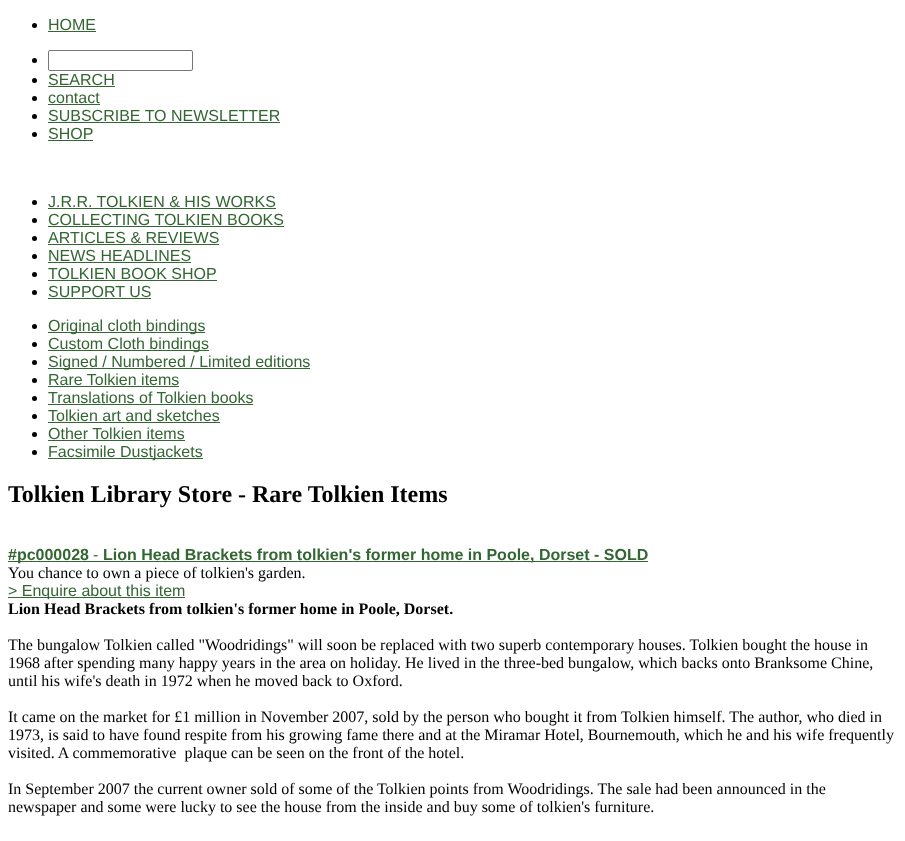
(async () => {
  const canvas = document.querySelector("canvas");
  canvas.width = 905;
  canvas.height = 841;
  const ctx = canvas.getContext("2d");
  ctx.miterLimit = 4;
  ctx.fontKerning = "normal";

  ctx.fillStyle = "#ffffff";
  ctx.fillRect(0, 0, 905, 841);
  ctx.fillStyle = "#000000";
  ctx.beginPath();
  ctx.arc(34.5, 25.5, 2.5, 0, Math.PI * 2);
  ctx.fill();
  ctx.fillStyle = "#336633";
  ctx.fillRect(48, 31, 48, 1);
  ctx.fillStyle = "#000000";
  ctx.beginPath();
  ctx.arc(34.5, 60.5, 2.5, 0, Math.PI * 2);
  ctx.fill();
  ctx.beginPath();
  ctx.roundRect(48.5, 50.5, 144, 20, 1.5);
  ctx.strokeStyle = "#767676";
  ctx.stroke();
  ctx.beginPath();
  ctx.arc(34.5, 80.5, 2.5, 0, Math.PI * 2);
  ctx.fill();
  ctx.fillStyle = "#336633";
  ctx.fillRect(48, 86, 67, 1);
  ctx.fillStyle = "#000000";
  ctx.beginPath();
  ctx.arc(34.5, 98.5, 2.5, 0, Math.PI * 2);
  ctx.fill();
  ctx.fillStyle = "#336633";
  ctx.fillRect(48, 104, 52, 1);
  ctx.fillStyle = "#000000";
  ctx.beginPath();
  ctx.arc(34.5, 116.5, 2.5, 0, Math.PI * 2);
  ctx.fill();
  ctx.fillStyle = "#336633";
  ctx.fillRect(48, 122, 232, 1);
  ctx.fillStyle = "#000000";
  ctx.beginPath();
  ctx.arc(34.5, 134.5, 2.5, 0, Math.PI * 2);
  ctx.fill();
  ctx.fillStyle = "#336633";
  ctx.fillRect(48, 140, 45, 1);
  ctx.fillStyle = "#000000";
  ctx.beginPath();
  ctx.arc(34.5, 202.5, 2.5, 0, Math.PI * 2);
  ctx.fill();
  ctx.fillStyle = "#336633";
  ctx.fillRect(48, 208, 228, 1);
  ctx.fillStyle = "#000000";
  ctx.beginPath();
  ctx.arc(34.5, 220.5, 2.5, 0, Math.PI * 2);
  ctx.fill();
  ctx.fillStyle = "#336633";
  ctx.fillRect(48, 226, 236, 1);
  ctx.fillStyle = "#000000";
  ctx.beginPath();
  ctx.arc(34.5, 238.5, 2.5, 0, Math.PI * 2);
  ctx.fill();
  ctx.fillStyle = "#336633";
  ctx.fillRect(48, 244, 171, 1);
  ctx.fillStyle = "#000000";
  ctx.beginPath();
  ctx.arc(34.5, 256.5, 2.5, 0, Math.PI * 2);
  ctx.fill();
  ctx.fillStyle = "#336633";
  ctx.fillRect(48, 262, 143, 1);
  ctx.fillStyle = "#000000";
  ctx.beginPath();
  ctx.arc(34.5, 274.5, 2.5, 0, Math.PI * 2);
  ctx.fill();
  ctx.fillStyle = "#336633";
  ctx.fillRect(48, 280, 169, 1);
  ctx.fillStyle = "#000000";
  ctx.beginPath();
  ctx.arc(34.5, 292.5, 2.5, 0, Math.PI * 2);
  ctx.fill();
  ctx.fillStyle = "#336633";
  ctx.fillRect(48, 298, 103, 1);
  ctx.fillStyle = "#000000";
  ctx.beginPath();
  ctx.arc(34.5, 326.5, 2.5, 0, Math.PI * 2);
  ctx.fill();
  ctx.fillStyle = "#336633";
  ctx.fillRect(48, 332, 157, 1);
  ctx.fillStyle = "#000000";
  ctx.beginPath();
  ctx.arc(34.5, 344.5, 2.5, 0, Math.PI * 2);
  ctx.fill();
  ctx.fillStyle = "#336633";
  ctx.fillRect(48, 350, 161, 1);
  ctx.fillStyle = "#000000";
  ctx.beginPath();
  ctx.arc(34.5, 362.5, 2.5, 0, Math.PI * 2);
  ctx.fill();
  ctx.fillStyle = "#336633";
  ctx.fillRect(48, 368, 262, 1);
  ctx.fillStyle = "#000000";
  ctx.beginPath();
  ctx.arc(34.5, 380.5, 2.5, 0, Math.PI * 2);
  ctx.fill();
  ctx.fillStyle = "#336633";
  ctx.fillRect(48, 386, 131, 1);
  ctx.fillStyle = "#000000";
  ctx.beginPath();
  ctx.arc(34.5, 398.5, 2.5, 0, Math.PI * 2);
  ctx.fill();
  ctx.fillStyle = "#336633";
  ctx.fillRect(48, 404, 205, 1);
  ctx.fillStyle = "#000000";
  ctx.beginPath();
  ctx.arc(34.5, 416.5, 2.5, 0, Math.PI * 2);
  ctx.fill();
  ctx.fillStyle = "#336633";
  ctx.fillRect(48, 422, 172, 1);
  ctx.fillStyle = "#000000";
  ctx.beginPath();
  ctx.arc(34.5, 434.5, 2.5, 0, Math.PI * 2);
  ctx.fill();
  ctx.fillStyle = "#336633";
  ctx.fillRect(48, 440, 137, 1);
  ctx.fillStyle = "#000000";
  ctx.beginPath();
  ctx.arc(34.5, 452.5, 2.5, 0, Math.PI * 2);
  ctx.fill();
  for (const [x, y, w, h, color] of [
    [48, 458, 155, 1, "#336633"],
    [8, 561, 640, 1, "#336633"],
    [8, 597, 177, 1, "#336633"],
  ]) {
    ctx.fillStyle = color;
    ctx.fillRect(x, y, w, h);
  }
  ctx.font = "16px Liberation Sans";
  for (const [text, x, y] of [
    ["HOME", 48, 30],
    ["SEARCH", 48, 85],
    ["contact", 48, 103],
    ["SUBSCRIBE TO NEWSLETTER", 48, 121],
    ["SHOP", 48, 139],
    ["J.R.R. TOLKIEN & HIS WORKS", 48, 207],
    ["COLLECTING TOLKIEN BOOKS", 48, 225],
    ["ARTICLES & REVIEWS", 48, 243],
    ["NEWS HEADLINES", 48, 261],
    ["TOLKIEN BOOK SHOP", 48, 279],
    ["SUPPORT US", 48, 297],
    ["Original cloth bindings", 48, 331],
    ["Custom Cloth bindings", 48, 349],
    ["Signed / Numbered / Limited editions", 48, 367],
    ["Rare Tolkien items", 48, 385],
    ["Translations of Tolkien books", 48, 403],
    ["Tolkien art and sketches", 48, 421],
    ["Other Tolkien items", 48, 439],
    ["Facsimile Dustjackets", 48, 457],
  ]) {
    ctx.fillText(text, x, y);
  }
  ctx.font = "bold 24px Liberation Serif";
  ctx.fillStyle = "#000000";
  ctx.fillText("Tolkien Library Store - Rare Tolkien Items", 8, 502);
  ctx.font = "bold 16px Liberation Sans";
  ctx.fillStyle = "#336633";
  ctx.fillText("#pc000028", 8, 560);
  ctx.font = "16px Liberation Sans";
  ctx.fillText("-", 93, 560);
  ctx.font = "bold 16px Liberation Sans";
  ctx.fillText("Lion Head Brackets from tolkien's former home in Poole, Dorset - SOLD", 103, 560);
  ctx.font = "16px Liberation Serif";
  ctx.fillStyle = "#000000";
  ctx.fillText("You chance to own a piece of tolkien's garden.", 8, 578);
  ctx.font = "16px Liberation Sans";
  ctx.fillStyle = "#336633";
  ctx.fillText("> Enquire about this item", 8, 596);
  ctx.font = "bold 16px Liberation Serif";
  ctx.fillStyle = "#000000";
  ctx.fillText("Lion Head Brackets from tolkien's former home in Poole, Dorset.", 8, 614);
  ctx.font = "16px Liberation Serif";
  for (const [text, x, y] of [
    ["The bungalow Tolkien called \"Woodridings\" will soon be replaced with two superb contemporary houses. Tolkien bought the house in", 8, 650],
    ["1968 after spending many happy years in the area on holiday. He lived in the three-bed bungalow, which backs onto Branksome Chine,", 8, 668],
    ["until his wife's death in 1972 when he moved back to Oxford.", 8, 686],
    ["It came on the market for £1 million in November 2007, sold by the person who bought it from Tolkien himself. The author, who died in", 8, 722],
    ["1973, is said to have found respite from his growing fame there and at the Miramar Hotel, Bournemouth, which he and his wife frequently", 8, 740],
    ["visited. A commemorative  plaque can be seen on the front of the hotel.", 8, 758],
    ["In September 2007 the current owner sold of some of the Tolkien points from Woodridings. The sale had been announced in the", 8, 794],
    ["newspaper and some were lucky to see the house from the inside and buy some of tolkien's furniture.", 8, 812],
  ]) {
    ctx.fillText(text, x, y);
  }
})();
